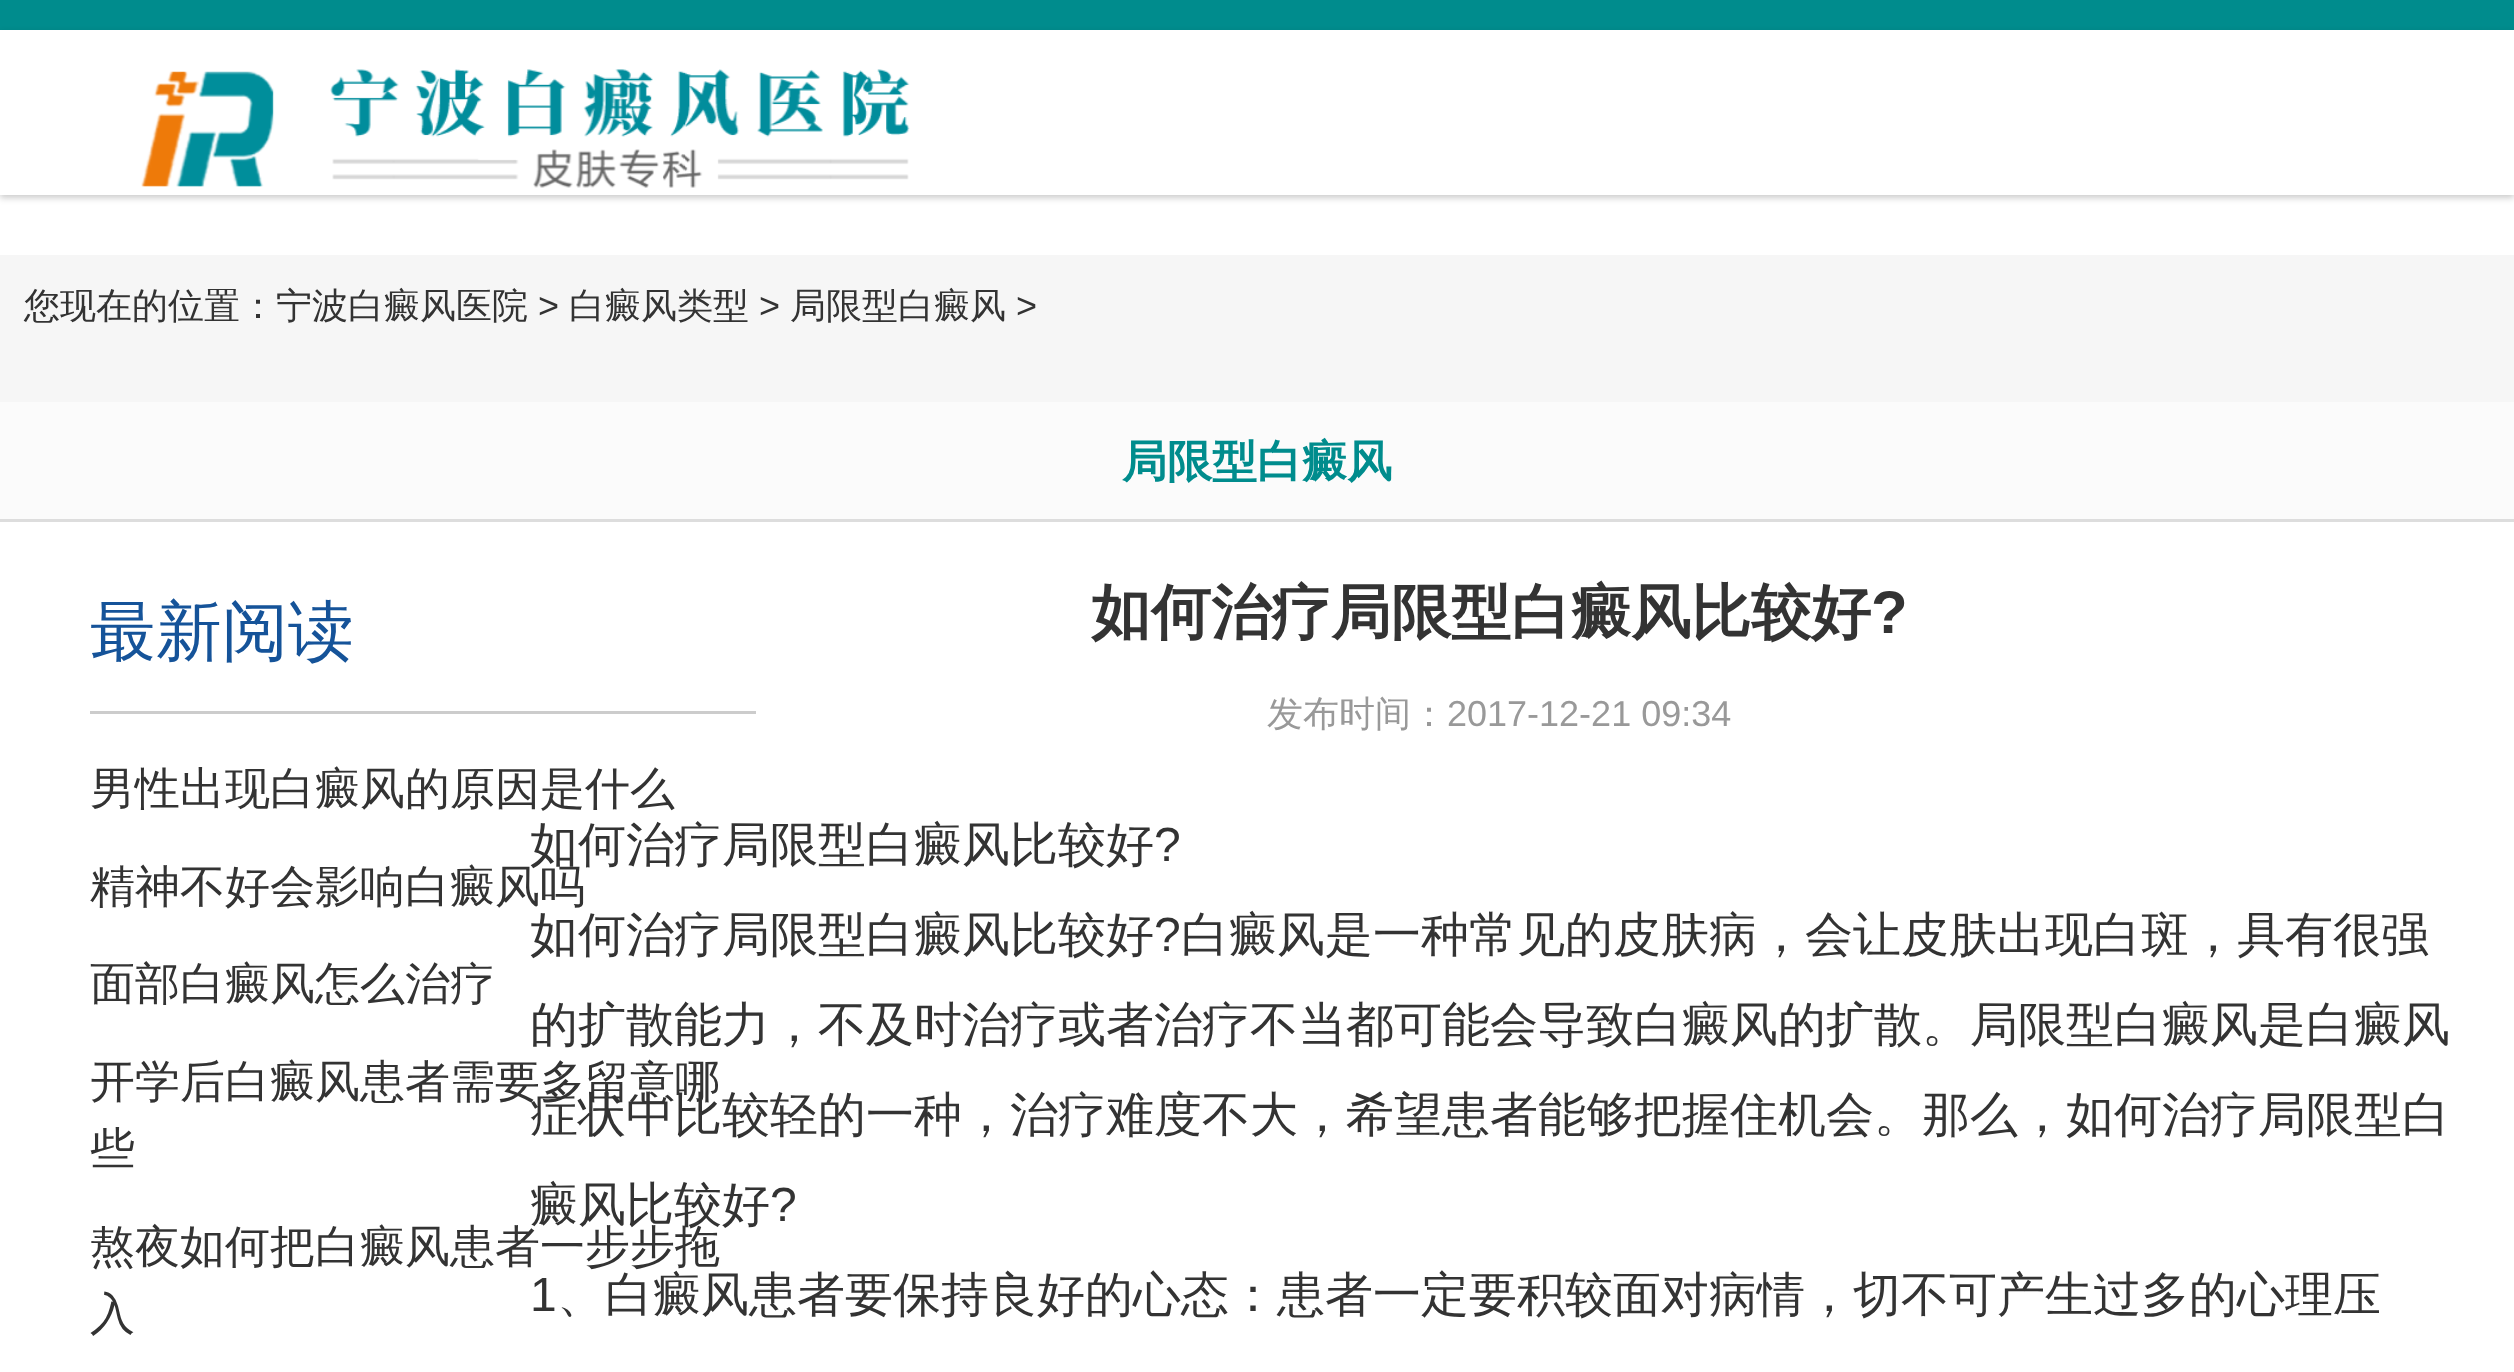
(async () => {
  const canvas = document.querySelector("canvas");
  canvas.width = 2514;
  canvas.height = 1372;
  const ctx = canvas.getContext("2d");
  ctx.miterLimit = 4;
  ctx.fontKerning = "normal";
  async function loadImage(src) {
    const img = new Image();
    img.src = src;
    await img.decode();
    return img;
  }

  ctx.fillStyle = "#ffffff";
  ctx.fillRect(0, 0, 2514, 1372);
  ctx.fillStyle = "#008c8d";
  ctx.fillRect(0, 0, 2514, 30);
  ctx.fillStyle = "rgba(0, 0, 0, 0.2)";
  ctx.filter = "blur(3px)";
  ctx.beginPath();
  ctx.rect(0, 33, 2514, 165);
  ctx.fill();
  ctx.filter = "none";
  ctx.fillStyle = "#ffffff";
  ctx.fillRect(0, 30, 2514, 165);
  ctx.drawImage(await loadImage("img/1.png"), 141, 69, 769, 119);
  for (const [x, y, w, h, color] of [
    [0, 255, 2514, 147, "#f6f6f6"],
    [0, 402, 2514, 117, "#fbfbfb"],
    [0, 519, 2514, 3, "#dddddd"],
    [90, 711, 666, 3, "#cccccc"],
  ]) {
    ctx.fillStyle = color;
    ctx.fillRect(x, y, w, h);
  }
  ctx.font = "500 36px WenQuanYi Zen Hei";
  ctx.fillStyle = "#333333";
  ctx.fillText("您现在的位置：宁波白癜风医院", 24, 318);
  ctx.font = "36px Liberation Sans";
  ctx.fillText(">", 538, 318);
  ctx.font = "500 36px WenQuanYi Zen Hei";
  ctx.fillText("白癜风类型", 569, 318);
  ctx.font = "36px Liberation Sans";
  ctx.fillText(">", 759, 318);
  ctx.font = "500 36px WenQuanYi Zen Hei";
  ctx.fillText("局限型白癜风", 790, 318);
  ctx.font = "36px Liberation Sans";
  ctx.fillText(">", 1016, 318);
  ctx.font = "bold 45px WenQuanYi Zen Hei";
  ctx.fillStyle = "#008c8d";
  ctx.fillText("局限型白癜风", 1122, 477);
  ctx.font = "500 66px WenQuanYi Zen Hei";
  ctx.fillStyle = "#155399";
  ctx.fillText("最新阅读", 90, 654);
  ctx.font = "500 45px WenQuanYi Zen Hei";
  ctx.fillStyle = "#333333";
  for (const [text, x, y] of [
    ["男性出现白癜风的原因是什么", 90, 804],
    ["精神不好会影响白癜风吗", 90, 902],
    ["面部白癜风怎么治疗", 90, 999],
    ["开学后白癜风患者需要多留意哪", 90, 1097],
    ["些", 90, 1164],
    ["熬夜如何把白癜风患者一步步拖", 90, 1262],
    ["入", 90, 1329],
  ]) {
    ctx.fillText(text, x, y);
  }
  ctx.font = "bold 60px WenQuanYi Zen Hei";
  ctx.fillText("如何治疗局限型白癜风比较好", 1091, 633);
  ctx.font = "bold 60px Liberation Sans";
  ctx.fillText("?", 1871, 633);
  ctx.font = "500 36px WenQuanYi Zen Hei";
  ctx.fillStyle = "#999999";
  ctx.fillText("发布时间：", 1267, 726);
  ctx.font = "36px Liberation Sans";
  ctx.fillText("2017-12-21 09:34", 1447, 726);
  ctx.font = "500 48px WenQuanYi Zen Hei";
  ctx.fillStyle = "#333333";
  ctx.fillText("如何治疗局限型白癜风比较好", 530, 861);
  ctx.font = "48px Liberation Sans";
  ctx.fillText("?", 1154, 861);
  ctx.font = "500 48px WenQuanYi Zen Hei";
  ctx.fillText("如何治疗局限型白癜风比较好", 530, 951);
  ctx.font = "48px Liberation Sans";
  ctx.fillText("?", 1154, 951);
  ctx.font = "500 48px WenQuanYi Zen Hei";
  for (const [text, x, y] of [
    ["白癜风是一种常见的皮肤病，会让皮肤出现白斑，具有很强", 1181, 951],
    ["的扩散能力，不及时治疗或者治疗不当都可能会导致白癜风的扩散。局限型白癜风是白癜风", 530, 1041],
    ["症状中比较轻的一种，治疗难度不大，希望患者能够把握住机会。那么，如何治疗局限型白", 530, 1131],
    ["癜风比较好", 530, 1221],
  ]) {
    ctx.fillText(text, x, y);
  }
  ctx.font = "48px Liberation Sans";
  ctx.fillText("?", 770, 1221);
  ctx.fillText("1", 530, 1311);
  ctx.font = "500 48px WenQuanYi Zen Hei";
  ctx.fillText("、白癜风患者要保持良好的心态：患者一定要积较面对病情，切不可产生过多的心理压", 557, 1311);
})();
